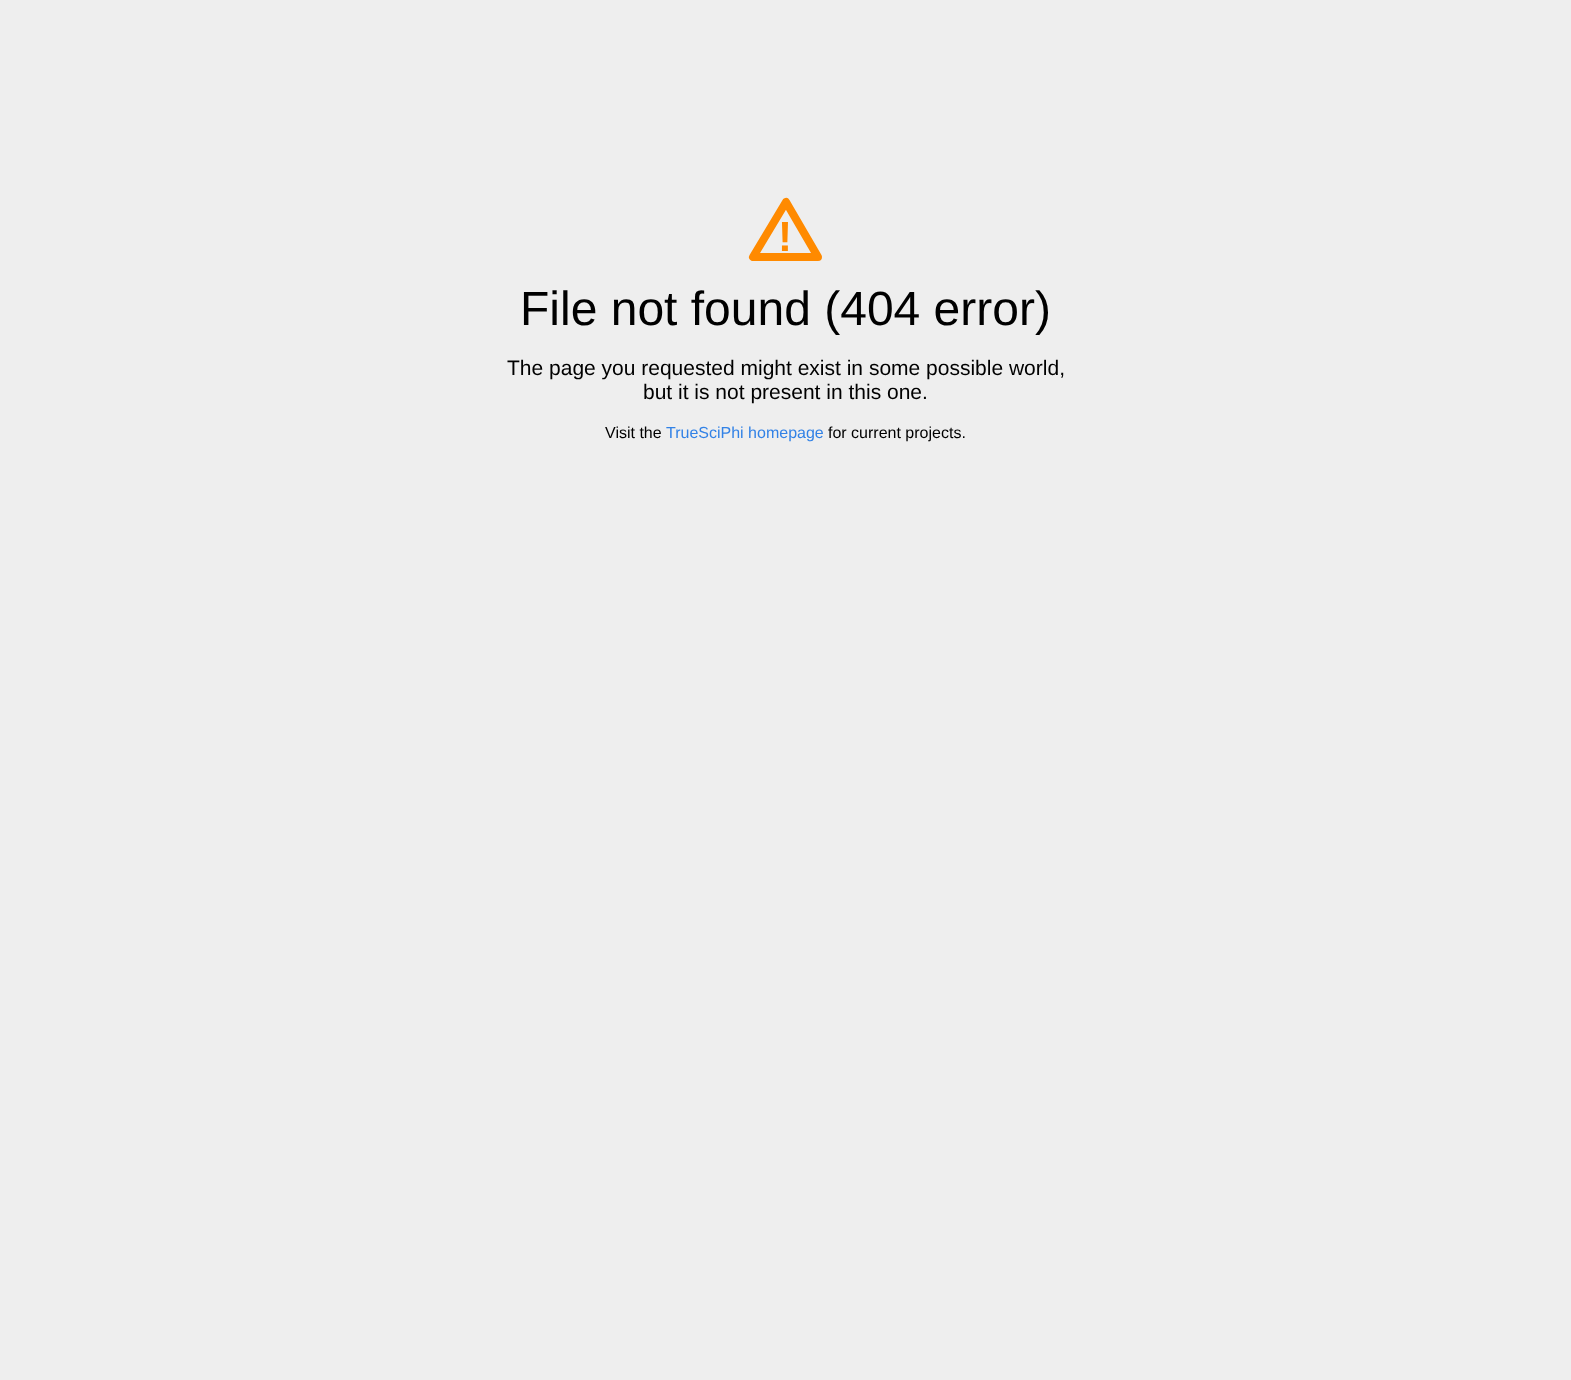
(async () => {
  const canvas = document.querySelector("canvas");
  canvas.width = 1571;
  canvas.height = 1380;
  const ctx = canvas.getContext("2d");
  ctx.miterLimit = 4;
  ctx.fontKerning = "normal";
  let path;

  ctx.fillStyle = "#eeeeee";
  ctx.fillRect(0, 0, 1571, 1380);
  path = new Path2D("M786 202L753 257H818Z");
  ctx.strokeStyle = "#ff8a00";
  ctx.lineWidth = 8;
  ctx.lineJoin = "round";
  ctx.stroke(path);
  ctx.font = "bold 42px Liberation Sans";
  ctx.fillStyle = "#ff8a00";
  ctx.fillText("!", 778, 251);
  ctx.font = "48px Liberation Sans";
  ctx.fillStyle = "#000000";
  ctx.fillText("File not found (404 error)", 520, 325);
  ctx.font = "21px Liberation Sans";
  ctx.fillText("The page you requested might exist in some possible world,", 507, 375);
  ctx.fillText("but it is not present in this one.", 643, 399);
  ctx.font = "16px Liberation Sans";
  ctx.fillText("Visit the", 605, 438);
  ctx.fillStyle = "#3282e6";
  ctx.fillText("TrueSciPhi homepage", 666, 438);
  ctx.fillStyle = "#000000";
  ctx.fillText("for current projects.", 828, 438);
})();
